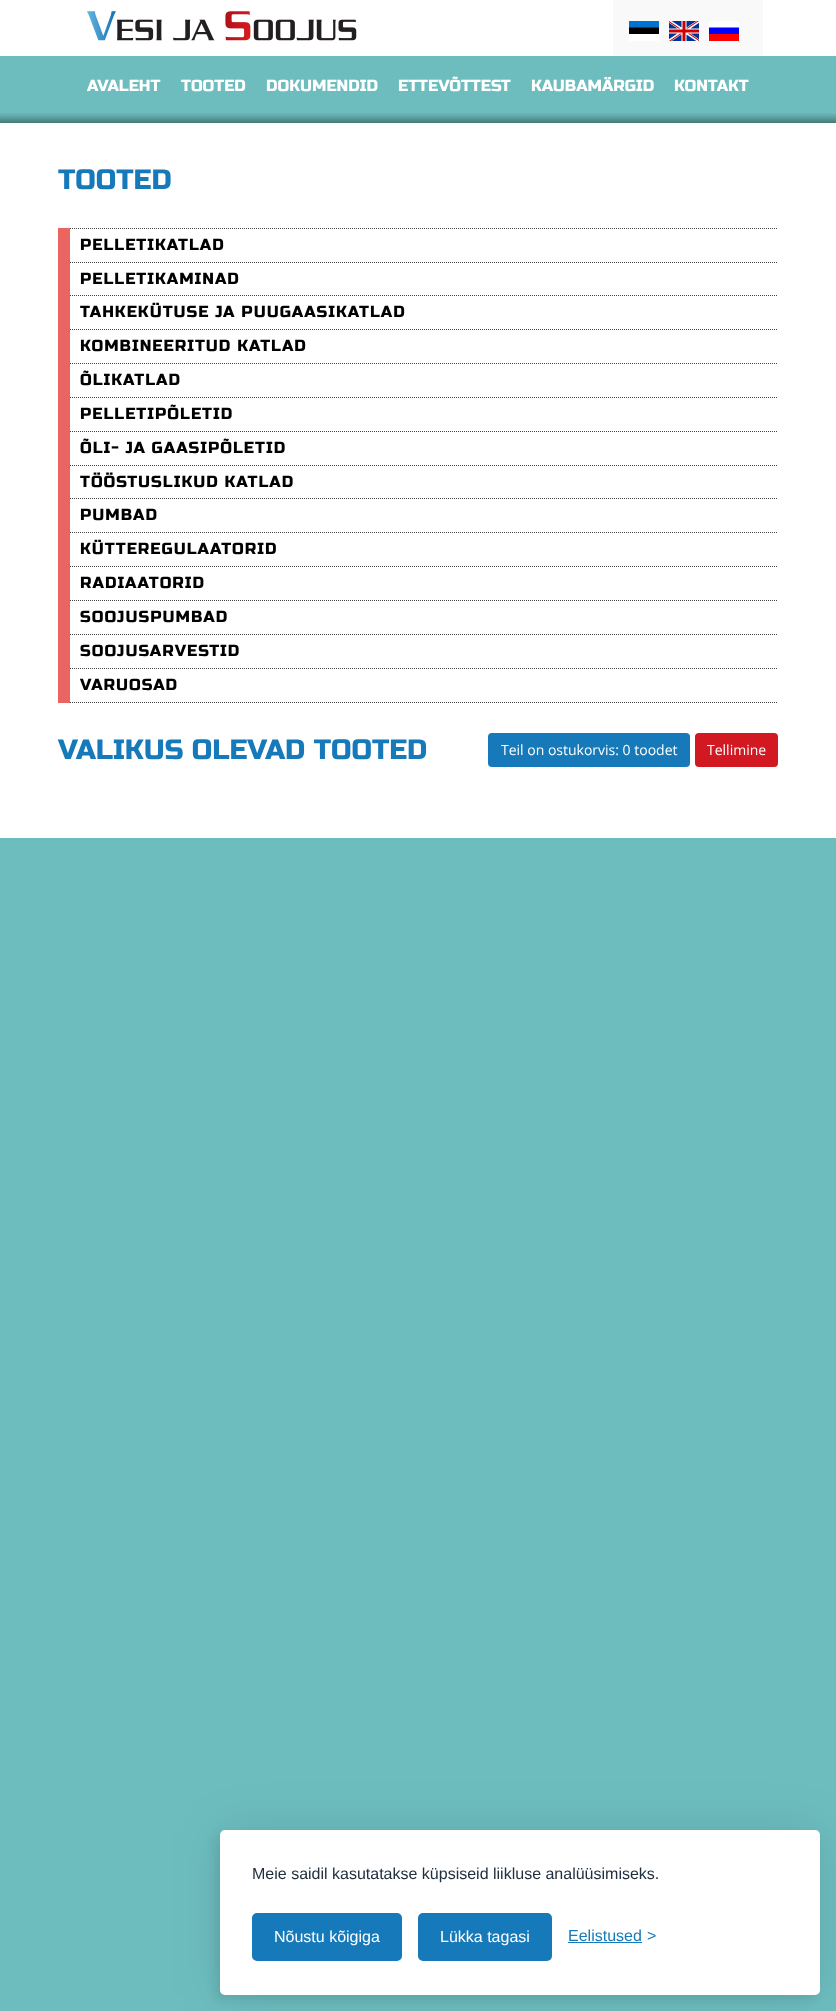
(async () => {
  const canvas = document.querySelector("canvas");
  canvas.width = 836;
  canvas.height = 2011;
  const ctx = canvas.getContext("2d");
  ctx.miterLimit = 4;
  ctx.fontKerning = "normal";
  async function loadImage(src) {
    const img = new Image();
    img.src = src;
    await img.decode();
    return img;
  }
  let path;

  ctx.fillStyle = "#6dbdbf";
  ctx.fillRect(0, 0, 836, 2011);
  ctx.fillStyle = "#ffffff";
  ctx.fillRect(0, 0, 836, 56);
  ctx.drawImage(await loadImage("img/1.png"), 86, 11, 271, 30);
  ctx.fillStyle = "#f9f9f9";
  ctx.fillRect(613, 0, 150, 56);
  ctx.drawImage(await loadImage("img/2.png"), 629, 21, 30, 20);
  ctx.drawImage(await loadImage("img/3.png"), 669, 21, 30, 20);
  ctx.drawImage(await loadImage("img/4.png"), 709, 21, 30, 20);
  ctx.drawImage(await loadImage("img/5.png"), 0, 113, 836, 10);
  ctx.fillStyle = "#ffffff";
  ctx.fillRect(0, 123, 836, 715);
  ctx.fillStyle = "#ea6562";
  ctx.fillRect(58, 228, 12, 475);
  path = new Path2D("M70 228.5H778");
  ctx.strokeStyle = "#444444";
  ctx.setLineDash([1, 1]);
  ctx.stroke(path);
  path = new Path2D("M70 262.5H778");
  ctx.stroke(path);
  path = new Path2D("M70 295.5H778");
  ctx.stroke(path);
  path = new Path2D("M70 329.5H778");
  ctx.stroke(path);
  path = new Path2D("M70 363.5H778");
  ctx.stroke(path);
  path = new Path2D("M70 397.5H778");
  ctx.stroke(path);
  path = new Path2D("M70 431.5H778");
  ctx.stroke(path);
  path = new Path2D("M70 465.5H778");
  ctx.stroke(path);
  path = new Path2D("M70 498.5H778");
  ctx.stroke(path);
  path = new Path2D("M70 532.5H778");
  ctx.stroke(path);
  path = new Path2D("M70 566.5H778");
  ctx.stroke(path);
  path = new Path2D("M70 600.5H778");
  ctx.stroke(path);
  path = new Path2D("M70 634.5H778");
  ctx.stroke(path);
  path = new Path2D("M70 668.5H778");
  ctx.stroke(path);
  path = new Path2D("M70 702.5H778");
  ctx.stroke(path);
  ctx.fillStyle = "#1679b9";
  ctx.beginPath();
  ctx.roundRect(488, 733, 202, 34, 4);
  ctx.fill();
  ctx.fillStyle = "#d21820";
  ctx.beginPath();
  ctx.roundRect(695, 733, 83, 34, 4);
  ctx.fill();
  ctx.fillStyle = "rgba(0, 0, 0, 0.1)";
  ctx.filter = "blur(25px)";
  ctx.beginPath();
  ctx.roundRect(220, 1830, 600, 165, 5);
  ctx.fill();
  ctx.filter = "none";
  ctx.fillStyle = "rgba(0, 0, 0, 0.07)";
  ctx.filter = "blur(5px)";
  ctx.beginPath();
  ctx.roundRect(215, 1835, 600, 165, 5);
  ctx.fill();
  ctx.filter = "none";
  ctx.fillStyle = "#ffffff";
  ctx.beginPath();
  ctx.roundRect(220, 1830, 600, 165, 5);
  ctx.fill();
  ctx.fillStyle = "#1679b9";
  ctx.beginPath();
  ctx.roundRect(253, 1914, 148, 46, 4);
  ctx.fill();
  ctx.strokeStyle = "#1679b9";
  ctx.lineWidth = 2;
  ctx.setLineDash([]);
  ctx.stroke();
  ctx.beginPath();
  ctx.roundRect(419, 1914, 132, 46, 4);
  ctx.fill();
  ctx.stroke();
  ctx.fillRect(568, 1942, 74, 1);
  ctx.font = "16px Russo One";
  ctx.fillStyle = "#ffffff";
  for (const [text, x, y] of [
    ["AVALEHT", 87, 91],
    ["TOOTED", 181, 91],
    ["DOKUMENDID", 266, 91],
    ["ETTEVÕTTEST", 398, 91],
    ["KAUBAMÄRGID", 531, 91],
    ["KONTAKT", 674, 91],
  ]) {
    ctx.fillText(text, x, y);
  }
  ctx.font = "28px Russo One";
  ctx.fillStyle = "#1679b9";
  ctx.fillText("TOOTED", 58, 189);
  ctx.letterSpacing = "1px";
  ctx.font = "16px Russo One";
  ctx.fillStyle = "#000000";
  for (const [text, x, y] of [
    ["PELLETIKATLAD", 80, 250],
    ["PELLETIKAMINAD", 80, 284],
    ["TAHKEKÜTUSE JA PUUGAASIKATLAD", 80, 317],
    ["KOMBINEERITUD KATLAD", 80, 351],
    ["ÕLIKATLAD", 80, 385],
    ["PELLETIPÕLETID", 80, 419],
    ["ÕLI- JA GAASIPÕLETID", 80, 453],
    ["TÖÖSTUSLIKUD KATLAD", 80, 487],
    ["PUMBAD", 80, 520],
    ["KÜTTEREGULAATORID", 80, 554],
    ["RADIAATORID", 80, 588],
    ["SOOJUSPUMBAD", 80, 622],
    ["SOOJUSARVESTID", 80, 656],
    ["VARUOSAD", 80, 690],
  ]) {
    ctx.fillText(text, x, y);
  }
  ctx.letterSpacing = "0px";
  ctx.font = "28px Russo One";
  ctx.fillStyle = "#1679b9";
  ctx.fillText("VALIKUS OLEVAD TOOTED", 58, 759);
  ctx.font = "14px Open Sans";
  ctx.fillStyle = "#ffffff";
  ctx.fillText("Teil on ostukorvis: 0 toodet", 501, 755);
  ctx.fillText("Tellimine", 707, 755);
  ctx.font = "16px Liberation Sans";
  ctx.fillStyle = "#203040";
  ctx.fillText("Meie saidil kasutatakse küpsiseid liikluse analüüsimiseks.", 252, 1879);
  ctx.fillStyle = "#ffffff";
  ctx.fillText("Nõustu kõigiga", 274, 1942);
  ctx.fillText("Lükka tagasi", 440, 1942);
  ctx.fillStyle = "#1679b9";
  ctx.fillText("Eelistused", 568, 1941);
  ctx.fillText(">", 647, 1941);
})();
